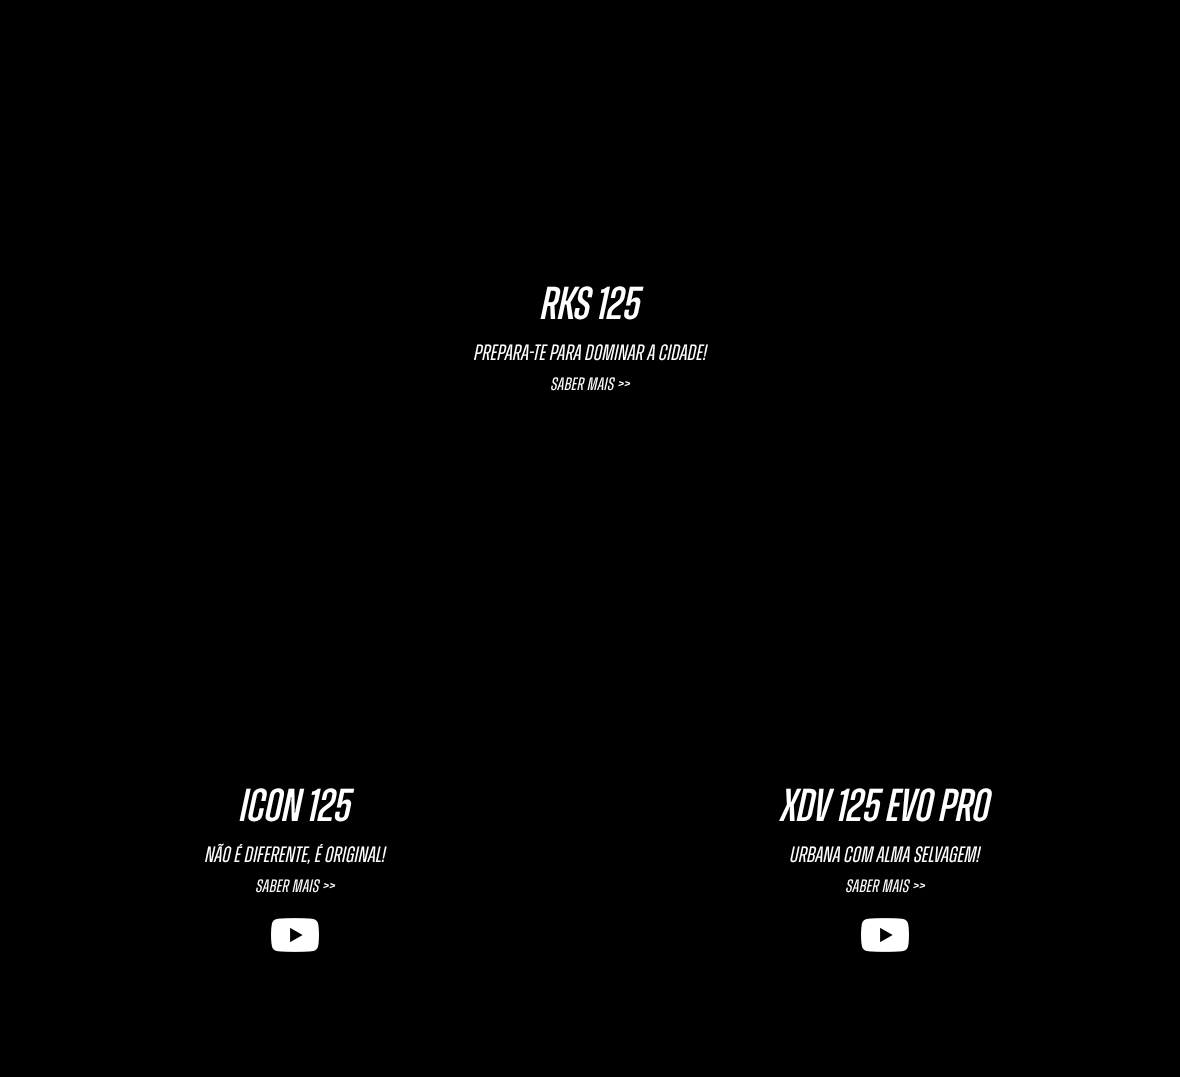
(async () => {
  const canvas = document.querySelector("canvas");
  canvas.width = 1180;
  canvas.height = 1077;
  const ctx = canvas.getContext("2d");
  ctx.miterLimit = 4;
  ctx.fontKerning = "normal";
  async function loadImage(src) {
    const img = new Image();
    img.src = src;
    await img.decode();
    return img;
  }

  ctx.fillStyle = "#000000";
  ctx.fillRect(0, 0, 1180, 1077);
  ctx.drawImage(await loadImage("img/1.png"), 271, 918, 48, 34);
  ctx.drawImage(await loadImage("img/1.png"), 861, 918, 48, 34);
  ctx.letterSpacing = "-0.5px";
  ctx.font = "italic 500 46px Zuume";
  ctx.fillStyle = "#ffffff";
  ctx.fillText("RKS 125", 541, 319);
  ctx.letterSpacing = "0px";
  ctx.font = "italic 22px Zuume";
  ctx.fillText("Prepara-te para dominar a cidade!", 474, 360);
  ctx.letterSpacing = "0.25px";
  ctx.font = "italic 18px Zuume";
  ctx.fillText("Saber mais >>", 551, 390);
  ctx.letterSpacing = "-0.5px";
  ctx.font = "italic 500 46px Zuume";
  ctx.fillText("ICON 125", 240, 821);
  ctx.letterSpacing = "0px";
  ctx.font = "italic 22px Zuume";
  ctx.fillText("Não é diferente, é original!", 205, 862);
  ctx.letterSpacing = "0.25px";
  ctx.font = "italic 18px Zuume";
  ctx.fillText("Saber mais >>", 256, 892);
  ctx.letterSpacing = "-0.5px";
  ctx.font = "italic 500 46px Zuume";
  ctx.fillText("XDV 125 EVO PRO", 781, 821);
  ctx.letterSpacing = "0px";
  ctx.font = "italic 22px Zuume";
  ctx.fillText("Urbana com Alma Selvagem!", 790, 862);
  ctx.letterSpacing = "0.25px";
  ctx.font = "italic 18px Zuume";
  ctx.fillText("Saber mais >>", 846, 892);
})();
